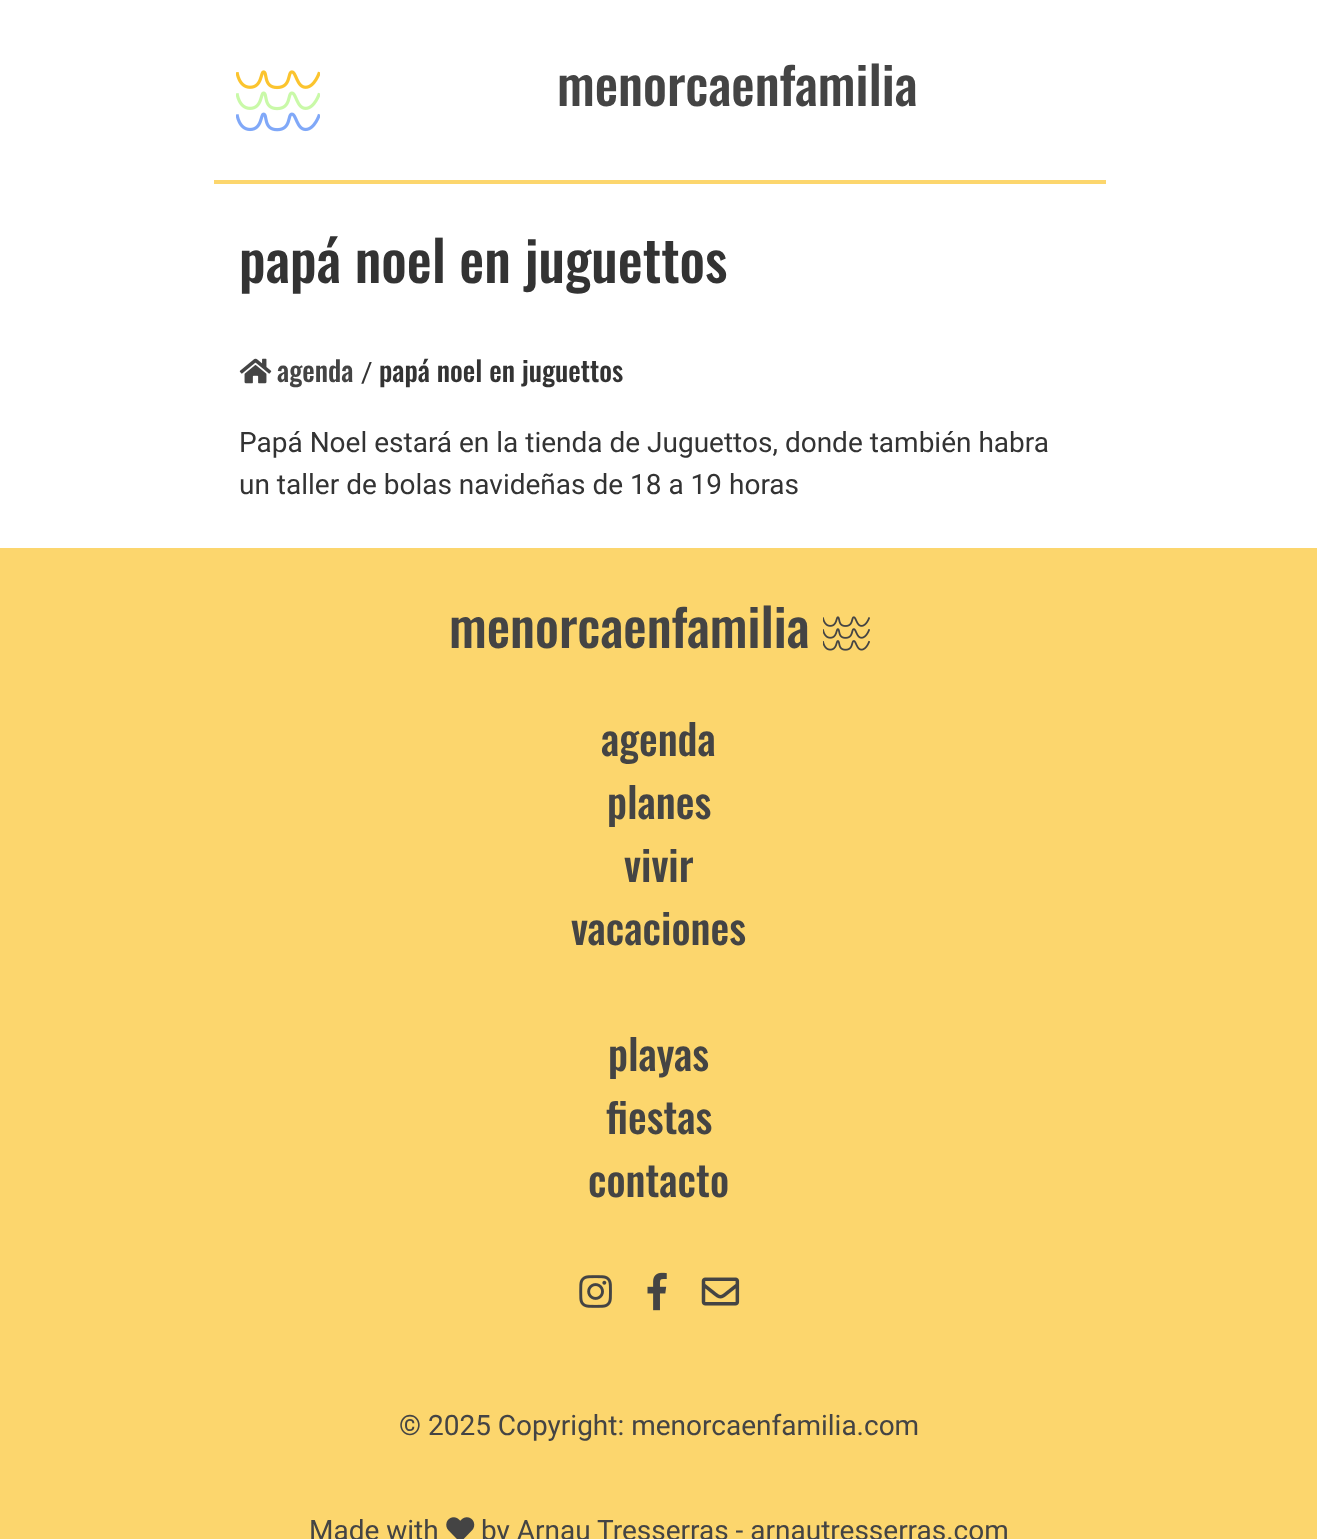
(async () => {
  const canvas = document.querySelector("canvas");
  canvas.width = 1317;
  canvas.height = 1539;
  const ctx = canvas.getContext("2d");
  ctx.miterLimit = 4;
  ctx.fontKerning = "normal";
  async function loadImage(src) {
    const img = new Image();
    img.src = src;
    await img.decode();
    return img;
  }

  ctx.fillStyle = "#ffffff";
  ctx.fillRect(0, 0, 1317, 1539);
  ctx.drawImage(await loadImage("img/1.png"), 236, 70, 84, 62);
  ctx.fillStyle = "#fcd66d";
  ctx.fillRect(214, 180, 892, 4);
  ctx.drawImage(await loadImage("img/2.png"), 239, 358, 33, 26);
  ctx.fillRect(0, 548, 1317, 991);
  ctx.drawImage(await loadImage("img/3.png"), 823, 616, 47, 35);
  ctx.drawImage(await loadImage("img/4.png"), 579, 1275, 33, 33);
  ctx.drawImage(await loadImage("img/5.png"), 647, 1272, 20, 39);
  ctx.drawImage(await loadImage("img/6.png"), 701, 1277, 39, 29);
  ctx.drawImage(await loadImage("img/7.png"), 446, 1517, 29, 22);
  ctx.font = "500 52.5px Oswald";
  ctx.fillStyle = "#444444";
  ctx.fillText("menorcaenfamilia", 557, 106);
  ctx.font = "500 56px Oswald";
  ctx.fillStyle = "#333333";
  ctx.fillText("papá noel en juguettos", 239, 283);
  ctx.font = "500 28px Oswald";
  ctx.fillStyle = "#444444";
  ctx.fillText("agenda", 277, 382);
  ctx.font = "28px Roboto";
  ctx.fillStyle = "#333333";
  ctx.fillText("/", 361, 382);
  ctx.font = "500 28px Oswald";
  ctx.fillText("papá noel en juguettos", 379, 382);
  ctx.font = "28px Roboto";
  ctx.fillText("Papá Noel estará en la tienda de Juguettos, donde también habra", 239, 452);
  ctx.fillText("un taller de bolas navideñas de 18 a 19 horas", 239, 494);
  ctx.font = "500 52.5px Oswald";
  ctx.fillStyle = "#444444";
  ctx.fillText("menorcaenfamilia", 449, 648);
  ctx.font = "500 42px Oswald";
  for (const [text, x, y] of [
    ["agenda", 601, 756],
    ["planes", 607, 819],
    ["vivir", 624, 882],
    ["vacaciones", 571, 945],
    ["playas", 608, 1071],
    ["fiestas", 606, 1134],
    ["contacto", 588, 1197],
  ]) {
    ctx.fillText(text, x, y);
  }
  ctx.font = "28px Roboto";
  for (const [text, x, y] of [
    ["© 2025 Copyright: menorcaenfamilia.com", 399, 1435],
    ["Made with", 309, 1540],
    ["by Arnau Tresserras - arnautresserras.com", 481, 1540],
  ]) {
    ctx.fillText(text, x, y);
  }
})();
